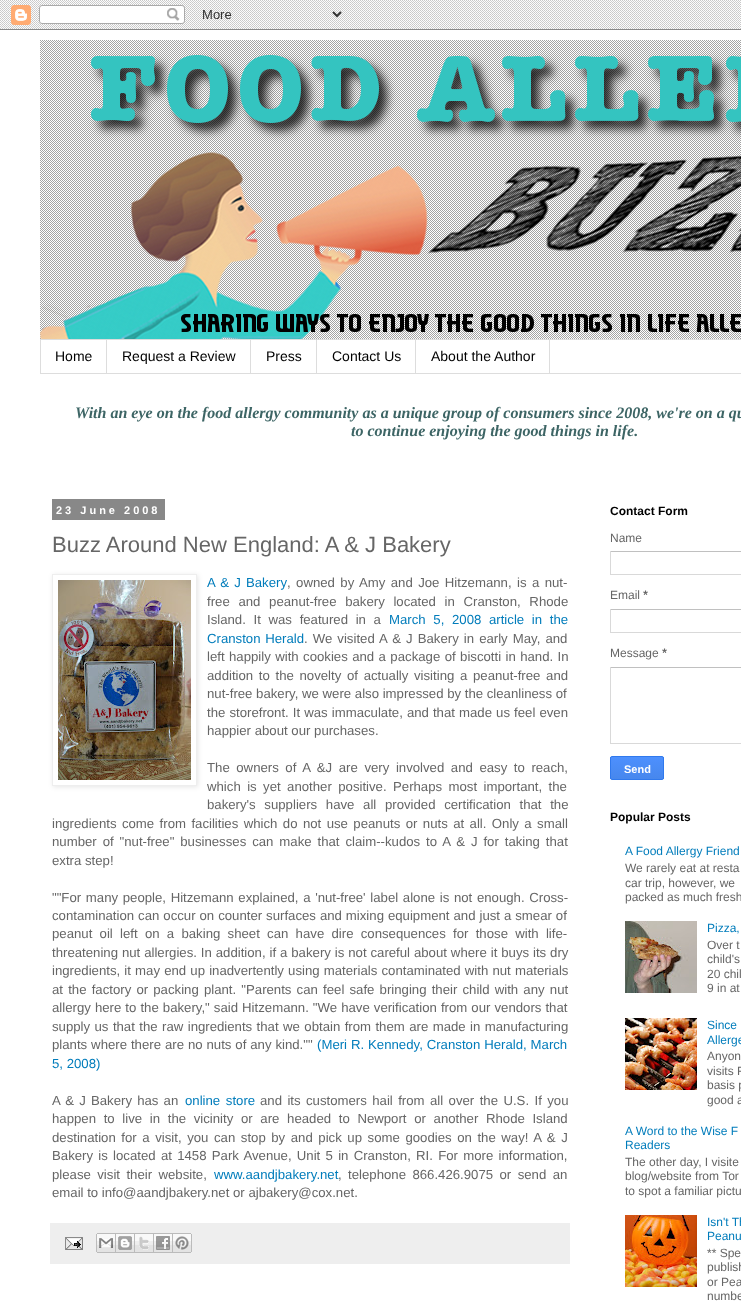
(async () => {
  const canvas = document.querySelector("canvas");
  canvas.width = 741;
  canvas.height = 1314;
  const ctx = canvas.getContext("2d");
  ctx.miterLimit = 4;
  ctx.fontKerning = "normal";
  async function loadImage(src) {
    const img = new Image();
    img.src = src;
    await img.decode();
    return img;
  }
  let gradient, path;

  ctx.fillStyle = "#ffffff";
  ctx.fillRect(0, 0, 741, 1314);
  ctx.drawImage(await loadImage("img/1.png"), 0, 0, 741, 29);
  ctx.drawImage(await loadImage("img/2.png"), 0, 0, 741, 30);
  ctx.drawImage(await loadImage("img/3.png"), 40, 40, 701, 299);
  ctx.strokeStyle = "#dddddd";
  ctx.strokeRect(40.5, 339.5, 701, 34);
  for (const [x, y, w, h, color] of [
    [106, 340, 1, 33, "#dddddd"],
    [250, 340, 1, 33, "#dddddd"],
    [316, 340, 1, 33, "#dddddd"],
    [415, 340, 1, 33, "#dddddd"],
    [549, 340, 1, 33, "#dddddd"],
    [52, 499, 113, 21, "#888888"],
  ]) {
    ctx.fillStyle = color;
    ctx.fillRect(x, y, w, h);
  }
  ctx.save();
  path = new Path2D("M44 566H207V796H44ZM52 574H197V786H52Z");
  ctx.clip(path, "evenodd");
  ctx.fillStyle = "rgba(0, 0, 0, 0.1)";
  ctx.filter = "blur(2.5px)";
  ctx.beginPath();
  ctx.rect(53, 575, 145, 212);
  ctx.fill();
  ctx.filter = "none";
  ctx.restore();
  ctx.strokeStyle = "#eeeeee";
  ctx.strokeRect(52.5, 574.5, 144, 211);
  ctx.drawImage(await loadImage("img/4.png"), 58, 580, 133, 200);
  ctx.fillStyle = "#eeeeee";
  ctx.fillRect(50, 1223, 520, 41);
  ctx.drawImage(await loadImage("img/5.png"), 65, 1237, 18, 13);
  ctx.drawImage(await loadImage("img/6.png"), 96, 1233, 20, 20);
  ctx.drawImage(await loadImage("img/7.png"), 116, 1233, 19, 20);
  ctx.drawImage(await loadImage("img/8.png"), 135, 1233, 19, 20);
  ctx.drawImage(await loadImage("img/9.png"), 154, 1233, 19, 20);
  ctx.drawImage(await loadImage("img/10.png"), 173, 1233, 19, 20);
  for (const [x, y, w, h, color] of [
    [610, 551, 131, 1, "#c0c0c0"],
    [610, 574, 131, 1, "#d9d9d9"],
    [610, 551, 1, 24, "#d9d9d9"],
    [610, 609, 131, 1, "#c0c0c0"],
    [610, 632, 131, 1, "#d9d9d9"],
    [610, 609, 1, 24, "#d9d9d9"],
    [610, 667, 131, 1, "#c0c0c0"],
    [610, 743, 131, 1, "#d9d9d9"],
    [610, 667, 1, 77, "#d9d9d9"],
  ]) {
    ctx.fillStyle = color;
    ctx.fillRect(x, y, w, h);
  }
  ctx.save();
  ctx.beginPath();
  ctx.roundRect(610, 756, 54, 24, 2);
  ctx.clip();
  gradient = ctx.createLinearGradient(637, 757, 637, 779);
  gradient.addColorStop(0, "#4d90fe");
  gradient.addColorStop(1, "#4787ed");
  ctx.fillStyle = gradient;
  ctx.fillRect(610, 757, 54, 22);
  ctx.restore();
  ctx.beginPath();
  ctx.roundRect(610.5, 756.5, 53, 23, 1.5);
  ctx.strokeStyle = "#3079ed";
  ctx.stroke();
  ctx.drawImage(await loadImage("img/11.png"), 625, 921, 72, 72);
  ctx.drawImage(await loadImage("img/12.png"), 625, 1018, 72, 72);
  ctx.drawImage(await loadImage("img/13.png"), 625, 1215, 72, 72);
  ctx.font = "14px Liberation Sans";
  ctx.fillStyle = "#000000";
  for (const [text, x, y] of [
    ["Home", 55, 361],
    ["Request a Review", 122, 361],
    ["Press", 266, 361],
    ["Contact Us", 332, 361],
    ["About the Author", 431, 361],
  ]) {
    ctx.fillText(text, x, y);
  }
  ctx.font = "italic bold 16px Liberation Serif";
  ctx.fillStyle = "#3d6565";
  ctx.fillText("With an eye on the food allergy community as a unique group of consumers since 2008, we're on a qu", 75, 418);
  ctx.fillText("to continue enjoying the good things in life.", 351, 436);
  ctx.letterSpacing = "3px";
  ctx.font = "bold 11px Liberation Sans";
  ctx.fillStyle = "#ffffff";
  ctx.fillText("23 June 2008", 56, 514);
  ctx.letterSpacing = "0px";
  ctx.font = "22px Liberation Sans";
  ctx.fillStyle = "#666666";
  ctx.fillText("Buzz Around New England: A & J Bakery", 52, 552);
  ctx.wordSpacing = "1.5px";
  ctx.font = "13.2px Arimo";
  ctx.fillStyle = "#007cbb";
  ctx.fillText("A & J Bakery", 207, 587);
  ctx.wordSpacing = "1.75px";
  ctx.fillStyle = "#666666";
  ctx.fillText(", owned by Amy and Joe Hitzemann, is a nut-", 287, 587);
  ctx.wordSpacing = "5px";
  ctx.fillText("free and peanut-free bakery located in Cranston, Rhode", 207, 606);
  ctx.wordSpacing = "4px";
  ctx.fillText("Island. It was featured in a", 207, 624);
  ctx.fillStyle = "#007cbb";
  ctx.fillText("March 5, 2008 article in the", 389, 624);
  ctx.wordSpacing = "1px";
  ctx.fillText("Cranston Herald", 207, 643);
  ctx.wordSpacing = "1.4px";
  ctx.fillStyle = "#666666";
  ctx.fillText(". We visited A & J Bakery in early May, and", 304, 643);
  ctx.wordSpacing = "0.75px";
  ctx.fillText("left happily with cookies and a package of biscotti in hand. In", 207, 661);
  ctx.wordSpacing = "2px";
  ctx.fillText("addition to the novelty of actually visiting a peanut-free and", 207, 680);
  ctx.wordSpacing = "0px";
  ctx.fillText("nut-free bakery, we were also impressed by the cleanliness of", 207, 698);
  ctx.wordSpacing = "0.4px";
  ctx.fillText("the storefront. It was immaculate, and that made us feel even", 207, 717);
  ctx.wordSpacing = "0px";
  ctx.fillText("happier about our purchases.", 207, 735);
  ctx.wordSpacing = "2.9px";
  ctx.fillText("The owners of A &J are very involved and easy to reach,", 207, 772);
  ctx.wordSpacing = "2.75px";
  ctx.fillText("which is yet another positive. Perhaps most important, the", 207, 791);
  ctx.wordSpacing = "5px";
  ctx.fillText("bakery's suppliers have all provided certification that the", 207, 809);
  ctx.wordSpacing = "1.75px";
  ctx.fillText("ingredients come from facilities which do not use peanuts or nuts at all. Only a small", 52, 828);
  ctx.wordSpacing = "2.25px";
  ctx.fillText("number of \"nut-free\" businesses can make that claim--kudos to A & J for taking that", 52, 846);
  ctx.wordSpacing = "0px";
  ctx.fillText("extra step!", 52, 865);
  ctx.wordSpacing = "1px";
  ctx.fillText("\"\"For many people, Hitzemann explained, a 'nut-free' label alone is not enough. Cross-", 52, 902);
  ctx.wordSpacing = "0.3px";
  ctx.fillText("contamination can occur on counter surfaces and mixing equipment and just a smear of", 52, 920);
  ctx.wordSpacing = "3.6px";
  ctx.fillText("peanut oil left on a baking sheet can have dire consequences for those with life-", 52, 938);
  ctx.wordSpacing = "0.25px";
  ctx.fillText("threatening nut allergies. In addition, if a bakery is not careful about where it buys its dry", 52, 957);
  ctx.wordSpacing = "0.5px";
  ctx.fillText("ingredients, it may end up inadvertently using materials contaminated with nut materials", 52, 975);
  ctx.wordSpacing = "1.5px";
  ctx.fillText("at the factory or packing plant. \"Parents can feel safe bringing their child with any nut", 52, 994);
  ctx.wordSpacing = "0.4px";
  ctx.fillText("allergy here to the bakery,\" said Hitzemann. \"We have verification from our vendors that", 52, 1012);
  ctx.wordSpacing = "0.75px";
  ctx.fillText("supply us that the raw ingredients that we obtain from them are made in manufacturing", 52, 1031);
  ctx.wordSpacing = "0.25px";
  ctx.fillText("plants where there are no nuts of any kind.\"\"", 52, 1049);
  ctx.fillStyle = "#007cbb";
  ctx.fillText("(Meri R. Kennedy, Cranston Herald, March", 317, 1049);
  ctx.wordSpacing = "0px";
  ctx.fillText("5, 2008)", 52, 1068);
  ctx.wordSpacing = "1.5px";
  ctx.fillStyle = "#666666";
  ctx.fillText("A & J Bakery has an", 52, 1105);
  ctx.wordSpacing = "2px";
  ctx.fillStyle = "#007cbb";
  ctx.fillText("online store", 185, 1105);
  ctx.wordSpacing = "1.75px";
  ctx.fillStyle = "#666666";
  ctx.fillText("and its customers hail from all over the U.S. If you", 260, 1105);
  ctx.wordSpacing = "4px";
  ctx.fillText("happen to live in the vicinity or are headed to Newport or another Rhode Island", 52, 1123);
  ctx.wordSpacing = "1.9px";
  ctx.fillText("destination for a visit, you can stop by and pick up some goodies on the way! A & J", 52, 1142);
  ctx.wordSpacing = "1.6px";
  ctx.fillText("Bakery is located at 1458 Park Avenue, Unit 5 in Cranston, RI. For more information,", 52, 1160);
  ctx.wordSpacing = "2.75px";
  ctx.fillText("please visit their website,", 52, 1179);
  ctx.wordSpacing = "0px";
  ctx.fillStyle = "#007cbb";
  ctx.fillText("www.aandjbakery.net", 214, 1179);
  ctx.wordSpacing = "2.75px";
  ctx.fillStyle = "#666666";
  ctx.fillText(", telephone 866.426.9075 or send an", 338, 1179);
  ctx.wordSpacing = "0px";
  ctx.fillText("email to info@aandjbakery.net or ajbakery@cox.net.", 52, 1197);
  ctx.font = "bold 12px Liberation Sans";
  ctx.fillStyle = "#000000";
  ctx.fillText("Contact Form", 610, 515);
  ctx.font = "12px Arimo";
  ctx.fillStyle = "#666666";
  ctx.fillText("Name", 610, 542);
  ctx.fillText("Email", 610, 599);
  ctx.font = "bold 12px Arimo";
  ctx.fillText("*", 643, 599);
  ctx.font = "12px Arimo";
  ctx.fillText("Message", 610, 657);
  ctx.font = "bold 12px Arimo";
  ctx.fillText("*", 662, 657);
  ctx.font = "bold 11px Liberation Sans";
  ctx.fillStyle = "#ffffff";
  ctx.fillText("Send", 624, 773);
  ctx.font = "bold 12px Liberation Sans";
  ctx.fillStyle = "#000000";
  ctx.fillText("Popular Posts", 610, 821);
  ctx.font = "12px Arimo";
  ctx.fillStyle = "#007cbb";
  ctx.fillText("A Food Allergy Friend", 625, 855);
  ctx.fillStyle = "#666666";
  for (const [text, x, y] of [
    ["We rarely eat at resta", 625, 872],
    ["car trip, however, we", 625, 887],
    ["packed as much fresh", 625, 901],
  ]) {
    ctx.fillText(text, x, y);
  }
  ctx.fillStyle = "#007cbb";
  ctx.fillText("Pizza,", 707, 932);
  ctx.fillStyle = "#666666";
  for (const [text, x, y] of [
    ["Over t", 707, 949],
    ["child's", 707, 963],
    ["20 chil", 707, 978],
    ["9 in at", 707, 992],
  ]) {
    ctx.fillText(text, x, y);
  }
  ctx.fillStyle = "#007cbb";
  ctx.fillText("Since", 707, 1029);
  ctx.fillText("Allerge", 707, 1044);
  ctx.fillStyle = "#666666";
  for (const [text, x, y] of [
    ["Anyon", 707, 1060],
    ["visits F", 707, 1075],
    ["basis p", 707, 1089],
    ["good a", 707, 1104],
  ]) {
    ctx.fillText(text, x, y);
  }
  ctx.fillStyle = "#007cbb";
  ctx.fillText("A Word to the Wise F", 625, 1135);
  ctx.fillText("Readers", 625, 1149);
  ctx.fillStyle = "#666666";
  for (const [text, x, y] of [
    ["The other day, I visite", 625, 1166],
    ["blog/website from Tor", 625, 1180],
    ["to spot a familiar pictu", 625, 1195],
  ]) {
    ctx.fillText(text, x, y);
  }
  ctx.fillStyle = "#007cbb";
  ctx.fillText("Isn't Th", 707, 1226);
  ctx.fillText("Peanu", 707, 1240);
  ctx.fillStyle = "#666666";
  for (const [text, x, y] of [
    ["** Spe", 707, 1257],
    ["publish", 707, 1271],
    ["or Pea", 707, 1286],
    ["numbe", 707, 1300],
  ]) {
    ctx.fillText(text, x, y);
  }
})();
